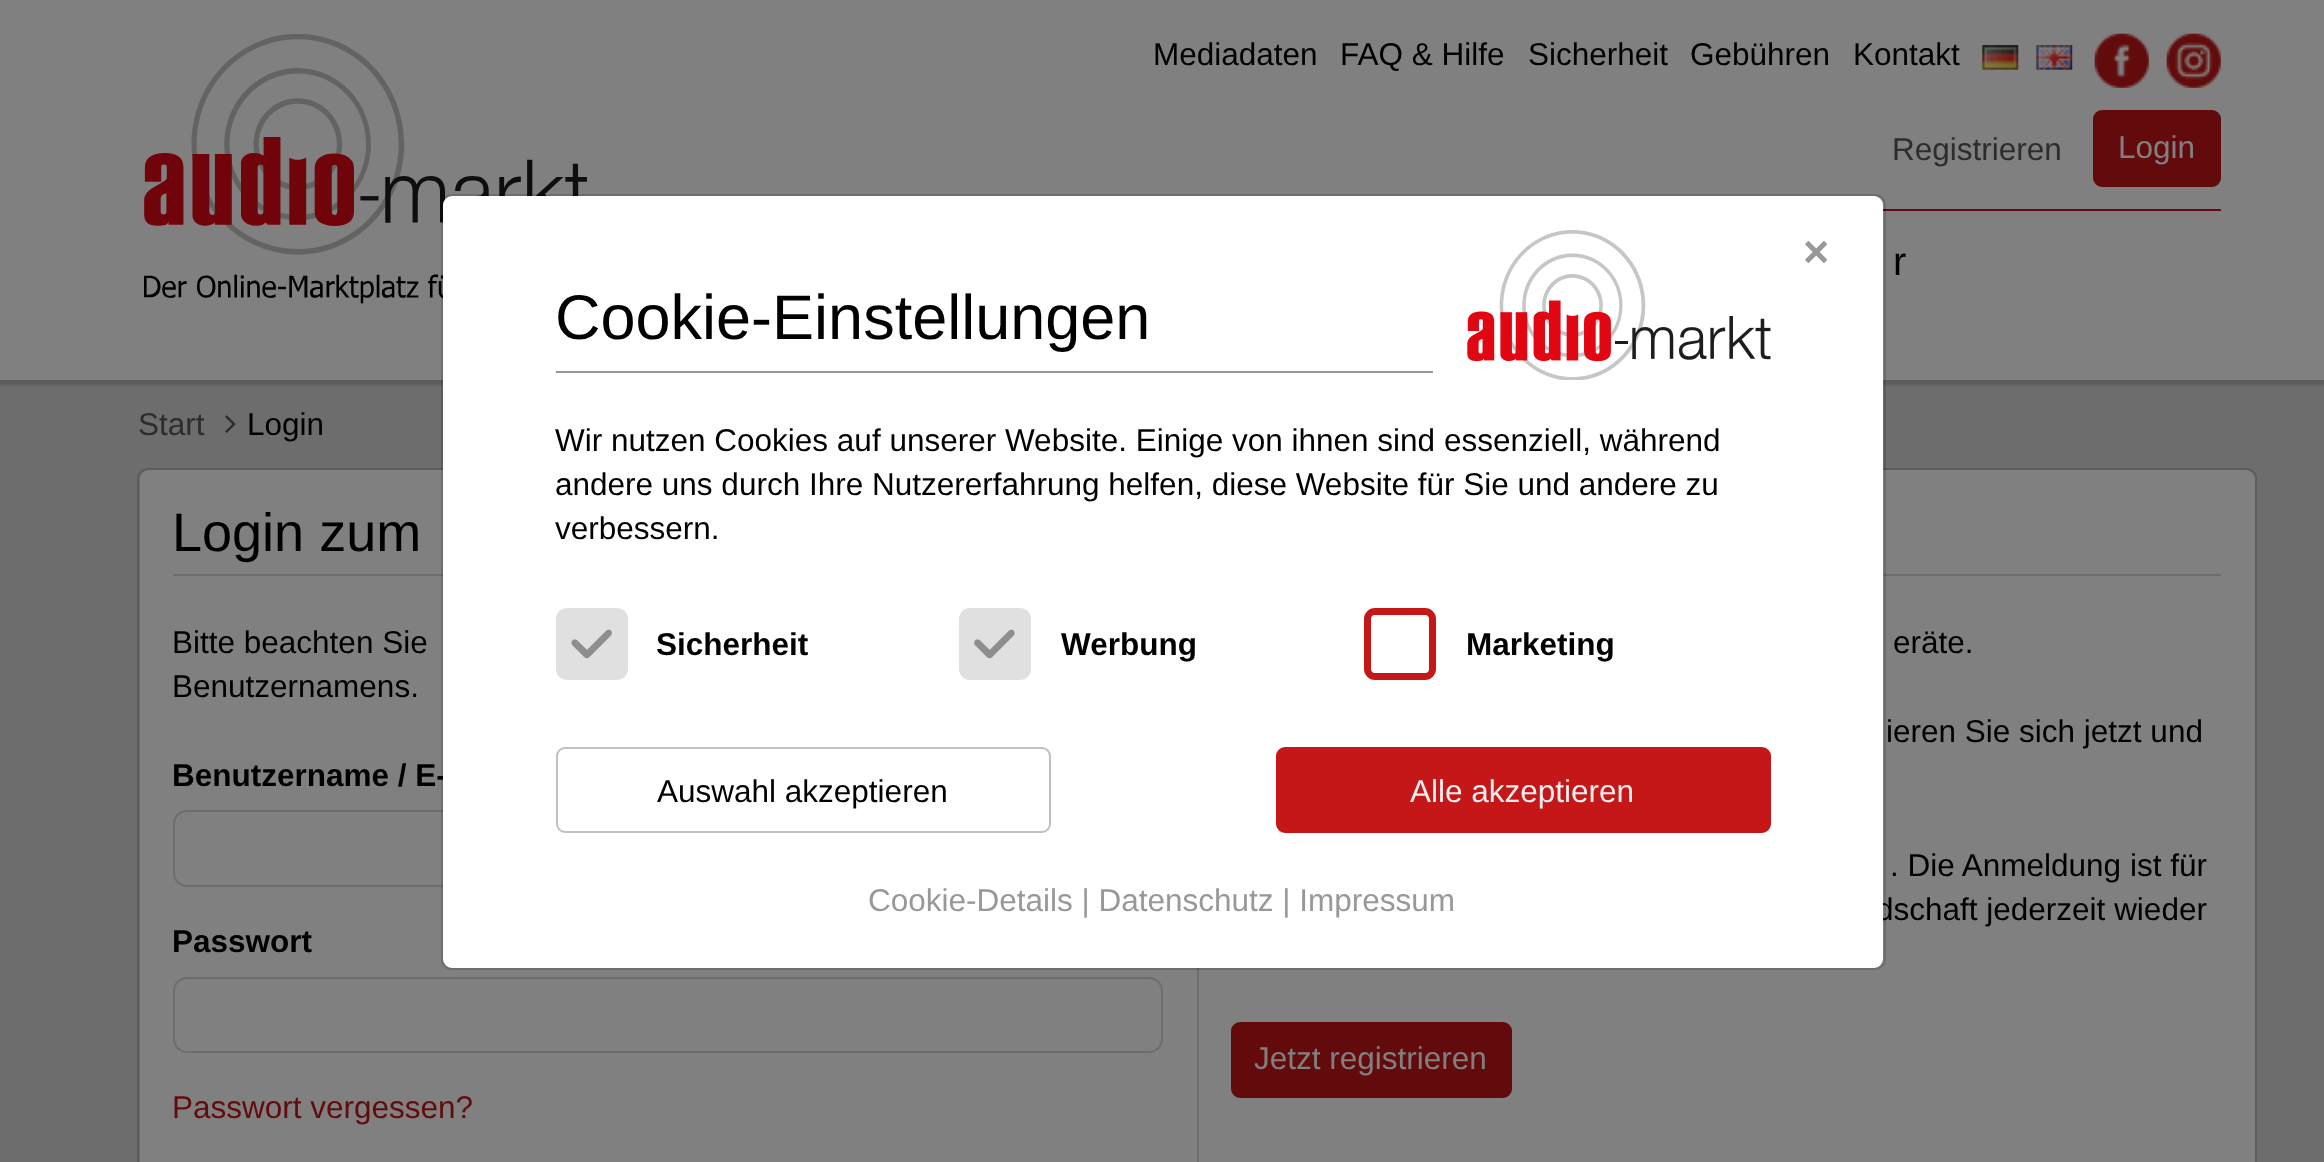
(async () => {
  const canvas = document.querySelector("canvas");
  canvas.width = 2324;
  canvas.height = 1162;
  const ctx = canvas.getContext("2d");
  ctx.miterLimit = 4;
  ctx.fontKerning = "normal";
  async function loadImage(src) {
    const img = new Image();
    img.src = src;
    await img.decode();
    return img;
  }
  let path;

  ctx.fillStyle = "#6d6d6d";
  ctx.fillRect(0, 0, 2324, 1162);
  ctx.fillStyle = "rgba(0, 0, 0, 0.15)";
  ctx.filter = "blur(1px)";
  ctx.beginPath();
  ctx.rect(-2, 0, 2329, 385);
  ctx.fill();
  ctx.filter = "none";
  ctx.fillStyle = "#808080";
  ctx.fillRect(0, 0, 2324, 380);
  ctx.drawImage(await loadImage("img/1.png"), 144, 34, 443, 270);
  ctx.drawImage(await loadImage("img/2.png"), 1982, 45, 37, 25);
  ctx.drawImage(await loadImage("img/3.png"), 2036, 45, 37, 25);
  ctx.drawImage(await loadImage("img/4.png"), 2094, 33, 55, 55);
  ctx.drawImage(await loadImage("img/5.png"), 2166, 33, 55, 55);
  ctx.fillStyle = "#630b0c";
  ctx.fillRect(1883, 209, 338, 2);
  ctx.beginPath();
  ctx.roundRect(2094, 111, 126, 75, 8);
  ctx.fill();
  ctx.strokeStyle = "#630b0c";
  ctx.lineWidth = 2;
  ctx.stroke();
  ctx.drawImage(await loadImage("img/9.png"), 225, 415, 11, 18);
  ctx.beginPath();
  ctx.roundRect(138, 469, 2118, 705, 10);
  ctx.strokeStyle = "#5c5c5c";
  ctx.stroke();
  ctx.fillStyle = "#808080";
  ctx.beginPath();
  ctx.roundRect(140, 470, 2115, 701, 9);
  ctx.fill();
  ctx.fillStyle = "#6d6d6d";
  ctx.fillRect(173, 574, 2048, 2);
  path = new Path2D("M142 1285H1199V621H1197V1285Z");
  ctx.fill(path);
  ctx.beginPath();
  ctx.roundRect(174, 811, 988, 75, 13);
  ctx.strokeStyle = "#6d6d6d";
  ctx.stroke();
  ctx.beginPath();
  ctx.roundRect(174, 978, 988, 74, 13);
  ctx.stroke();
  ctx.fillStyle = "#630b0c";
  ctx.beginPath();
  ctx.roundRect(1232, 1023, 279, 74, 8);
  ctx.fill();
  ctx.strokeStyle = "#630b0c";
  ctx.stroke();
  ctx.font = "31.5px Liberation Sans";
  ctx.fillStyle = "#000000";
  for (const [text, x, y] of [
    ["Mediadaten", 1153, 65],
    ["FAQ & Hilfe", 1340, 65],
    ["Sicherheit", 1528, 65],
    ["Gebühren", 1690, 65],
    ["Kontakt", 1853, 65],
  ]) {
    ctx.fillText(text, x, y);
  }
  ctx.fillStyle = "#2d2d2d";
  ctx.fillText("Registrieren", 1892, 160);
  ctx.fillStyle = "#808080";
  ctx.fillText("Login", 2118, 158);
  ctx.font = "40px Liberation Sans";
  ctx.fillStyle = "#000000";
  ctx.fillText("r", 1893, 275);
  ctx.font = "31.5px Liberation Sans";
  ctx.fillStyle = "#2d2d2d";
  ctx.fillText("Start", 138, 435);
  ctx.fillStyle = "#000000";
  ctx.fillText("Login", 247, 435);
  ctx.font = "54px Liberation Sans";
  ctx.fillText("Login zum", 172, 551);
  ctx.font = "31.5px Liberation Sans";
  ctx.fillText("Bitte beachten Sie", 172, 653);
  ctx.fillText("Benutzernamens.", 172, 697);
  ctx.font = "bold 31.5px Liberation Sans";
  ctx.fillText("Benutzername / E-", 172, 786);
  ctx.fillText("Passwort", 172, 952);
  ctx.font = "31.5px Liberation Sans";
  ctx.fillStyle = "#630b0c";
  ctx.fillText("Passwort vergessen?", 172, 1118);
  ctx.fillStyle = "#000000";
  for (const [text, x, y] of [
    ["eräte.", 1893, 653],
    ["ieren Sie sich jetzt und", 1886, 742],
    [". Die Anmeldung ist für", 1890, 876],
    ["dschaft jederzeit wieder", 1876, 920],
  ]) {
    ctx.fillText(text, x, y);
  }
  ctx.beginPath();
  ctx.roundRect(442, 195, 1443, 774, 10);
  ctx.strokeStyle = "rgba(0, 0, 0, 0.15)";
  ctx.stroke();
  ctx.fillStyle = "#ffffff";
  ctx.beginPath();
  ctx.roundRect(443, 196, 1440, 772, 9);
  ctx.fill();
  ctx.font = "bold 45px Liberation Sans";
  ctx.fillStyle = "#989898";
  ctx.fillText("×", 1803, 267);
  ctx.beginPath();
  ctx.roundRect(1367.5, 611.5, 65, 65, 7.5);
  ctx.strokeStyle = "#c51618";
  ctx.lineWidth = 7;
  ctx.stroke();
  ctx.font = "bold 31.5px Liberation Sans";
  ctx.fillStyle = "#000000";
  ctx.fillText("Marketing", 1466, 655);
  ctx.fillStyle = "#e0e0e0";
  ctx.beginPath();
  ctx.roundRect(959, 608, 72, 72, 11);
  ctx.fill();
  ctx.drawImage(await loadImage("img/8.png"), 974, 629, 41, 30);
  ctx.fillStyle = "#000000";
  ctx.fillText("Werbung", 1061, 655);
  ctx.fillStyle = "#e0e0e0";
  ctx.beginPath();
  ctx.roundRect(556, 608, 72, 72, 11);
  ctx.fill();
  ctx.drawImage(await loadImage("img/7.png"), 571, 629, 41, 30);
  ctx.fillStyle = "#000000";
  ctx.fillText("Sicherheit", 656, 655);
  ctx.font = "31.5px Liberation Sans";
  ctx.fillStyle = "#989898";
  ctx.fillText("Cookie-Details | Datenschutz | Impressum", 868, 911);
  ctx.fillStyle = "#c51618";
  ctx.beginPath();
  ctx.roundRect(1277, 748, 493, 84, 8);
  ctx.fill();
  ctx.lineWidth = 2;
  ctx.stroke();
  ctx.fillStyle = "#eeeeee";
  ctx.fillText("Alle akzeptieren", 1410, 802);
  ctx.beginPath();
  ctx.roundRect(557, 748, 493, 84, 8);
  ctx.strokeStyle = "#c1bfc0";
  ctx.stroke();
  ctx.fillStyle = "#000000";
  for (const [text, x, y] of [
    ["Auswahl akzeptieren", 657, 802],
    ["verbessern.", 555, 539],
    ["andere uns durch Ihre Nutzererfahrung helfen, diese Website für Sie und andere zu", 555, 495],
    ["Wir nutzen Cookies auf unserer Website. Einige von ihnen sind essenziell, während", 555, 451],
  ]) {
    ctx.fillText(text, x, y);
  }
  ctx.font = "63px Liberation Sans";
  ctx.fillText("Cookie-Einstellungen", 555, 339);
  ctx.fillStyle = "#979795";
  ctx.fillRect(556, 371, 877, 2);
  ctx.drawImage(await loadImage("img/6.png"), 1467, 230, 304, 150);
  ctx.font = "31.5px Liberation Sans";
  ctx.fillStyle = "#808080";
  ctx.fillText("Jetzt registrieren", 1254, 1069);
})();
